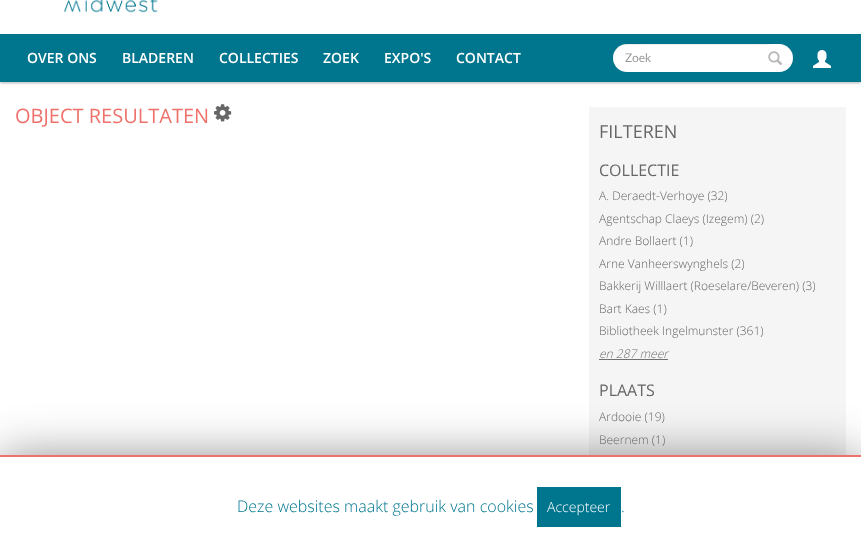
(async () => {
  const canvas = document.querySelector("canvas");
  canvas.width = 861;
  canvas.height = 557;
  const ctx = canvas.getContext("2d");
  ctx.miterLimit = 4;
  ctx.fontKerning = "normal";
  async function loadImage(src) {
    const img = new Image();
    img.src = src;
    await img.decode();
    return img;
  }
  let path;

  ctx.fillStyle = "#ffffff";
  ctx.fillRect(0, 0, 861, 557);
  ctx.save();
  ctx.beginPath();
  ctx.rect(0, 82, 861, 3);
  ctx.clip();
  ctx.fillStyle = "rgba(0, 0, 0, 0.3)";
  ctx.filter = "blur(1.5px)";
  ctx.beginPath();
  ctx.rect(0, -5, 861, 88);
  ctx.fill();
  ctx.filter = "none";
  ctx.restore();
  ctx.drawImage(await loadImage("img/1.png"), 64, 0, 94, 13);
  ctx.fillStyle = "#00768e";
  ctx.fillRect(0, 34, 861, 48);
  ctx.fillStyle = "#ffffff";
  ctx.beginPath();
  ctx.roundRect(613, 44, 180, 28, 14);
  ctx.fill();
  ctx.fillStyle = "rgba(0, 0, 0, 0.07)";
  path = new Path2D("M627 45H779C787 45 793 51 793 58C794 38 764 44 754 44H652C642 44 612 38 613 58C613 51 619 45 627 45Z");
  ctx.fill(path);
  ctx.fillStyle = "#ffffff";
  ctx.beginPath();
  ctx.roundRect(762, 44, 26, 28, 10);
  ctx.fill();
  ctx.drawImage(await loadImage("img/2.png"), 768, 51, 15, 15);
  ctx.drawImage(await loadImage("img/3.png"), 813, 50, 18, 18);
  ctx.drawImage(await loadImage("img/4.png"), 214, 104, 18, 18);
  ctx.fillStyle = "#f5f5f5";
  ctx.fillRect(589, 107, 257, 348);
  ctx.fillStyle = "#707070";
  ctx.fillRect(599, 359, 69, 1);
  ctx.fillStyle = "rgba(0, 0, 0, 0.5)";
  ctx.filter = "blur(25px)";
  ctx.beginPath();
  ctx.rect(0, 460, 861, 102);
  ctx.fill();
  ctx.filter = "none";
  for (const [x, y, w, h, color] of [
    [0, 457, 861, 100, "#ffffff"],
    [0, 455, 861, 2, "#ee726b"],
    [537, 487, 84, 40, "#00768e"],
  ]) {
    ctx.fillStyle = color;
    ctx.fillRect(x, y, w, h);
  }
  ctx.font = "600 14px Open Sans";
  ctx.fillStyle = "#ffffff";
  for (const [text, x, y] of [
    ["OVER ONS", 27, 63],
    ["BLADEREN", 122, 63],
    ["COLLECTIES", 219, 63],
    ["ZOEK", 323, 63],
    ["EXPO'S", 384, 63],
    ["CONTACT", 456, 63],
  ]) {
    ctx.fillText(text, x, y);
  }
  ctx.font = "12px Lato";
  ctx.fillStyle = "#999999";
  ctx.fillText("Zoek", 625, 62);
  ctx.font = "20px Open Sans";
  ctx.fillStyle = "#ee726b";
  ctx.fillText("OBJECT RESULTATEN", 15, 123);
  ctx.font = "18px Open Sans";
  ctx.fillStyle = "#666666";
  ctx.fillText("FILTEREN", 599, 138);
  ctx.font = "16px Open Sans";
  ctx.fillText("COLLECTIE", 599, 176);
  ctx.font = "300 12px Open Sans";
  for (const [text, x, y] of [
    ["A. Deraedt-Verhoye (32)", 599, 200],
    ["Agentschap Claeys (Izegem) (2)", 599, 223],
    ["Andre Bollaert (1)", 599, 245],
    ["Arne Vanheerswynghels (2)", 599, 268],
    ["Bakkerij Willlaert (Roeselare/Beveren) (3)", 599, 290],
    ["Bart Kaes (1)", 599, 313],
    ["Bibliotheek Ingelmunster (361)", 599, 335],
  ]) {
    ctx.fillText(text, x, y);
  }
  ctx.font = "italic 300 12px Open Sans";
  ctx.fillStyle = "#707070";
  ctx.fillText("en 287 meer", 599, 358);
  ctx.font = "16px Open Sans";
  ctx.fillStyle = "#666666";
  ctx.fillText("PLAATS", 599, 396);
  ctx.font = "300 12px Open Sans";
  ctx.fillText("Ardooie (19)", 599, 421);
  ctx.fillText("Beernem (1)", 599, 444);
  ctx.font = "300 16px Open Sans";
  ctx.fillStyle = "#00768e";
  ctx.fillText("Deze websites maakt gebruik van cookies", 237, 512);
  ctx.font = "300 14px Open Sans";
  ctx.fillStyle = "#ffffff";
  ctx.fillText("Accepteer", 547, 512);
  ctx.font = "300 16px Open Sans";
  ctx.fillStyle = "#00768e";
  ctx.fillText(".", 621, 512);
})();
